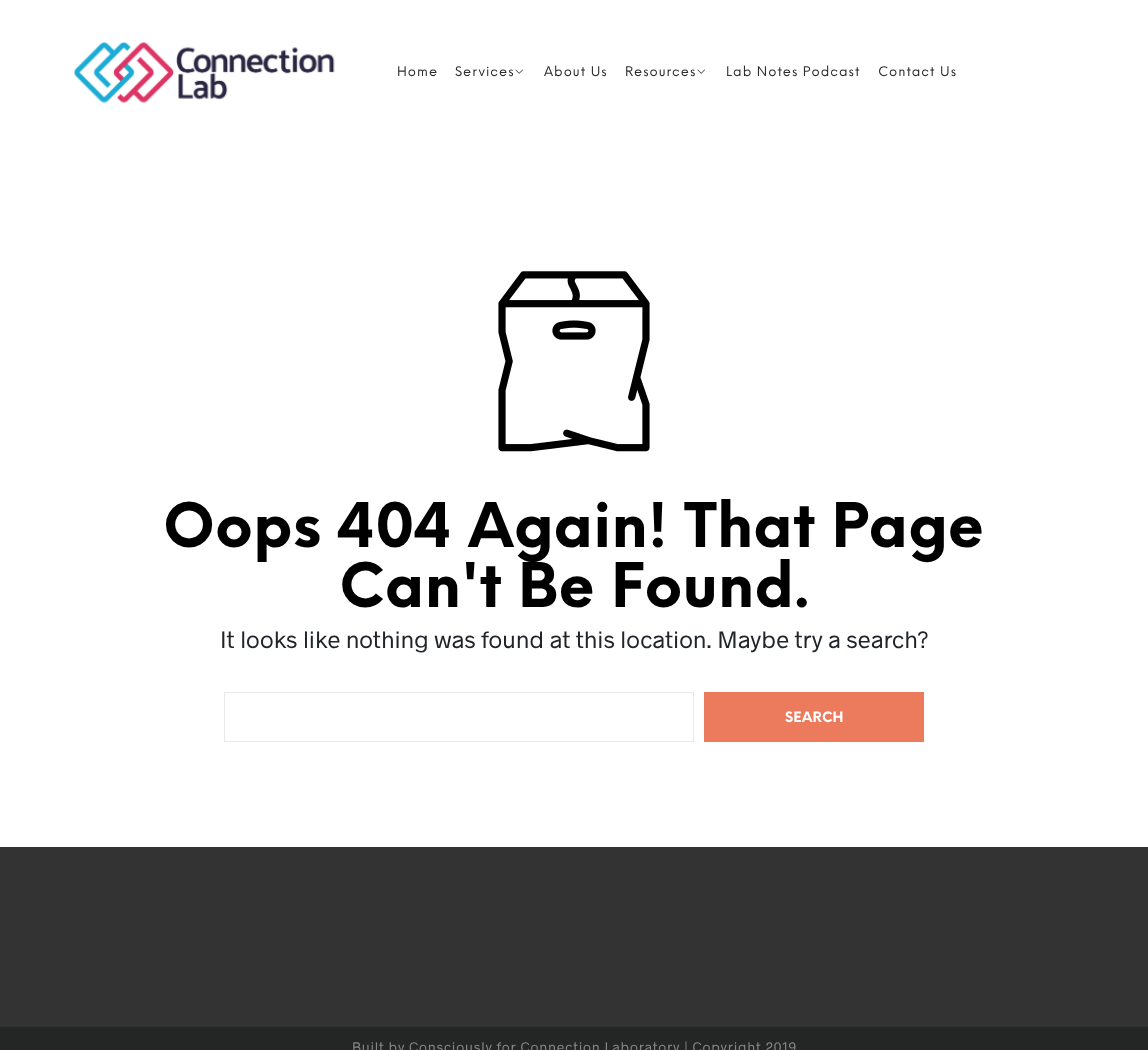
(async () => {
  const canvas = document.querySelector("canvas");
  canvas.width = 1148;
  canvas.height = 1050;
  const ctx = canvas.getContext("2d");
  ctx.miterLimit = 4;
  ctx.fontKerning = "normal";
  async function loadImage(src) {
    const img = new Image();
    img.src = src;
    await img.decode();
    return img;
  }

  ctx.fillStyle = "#ffffff";
  ctx.fillRect(0, 0, 1148, 1050);
  ctx.drawImage(await loadImage("img/1.png"), 73, 42, 262, 61);
  ctx.drawImage(await loadImage("img/2.png"), 515, 69, 8, 5);
  ctx.drawImage(await loadImage("img/2.png"), 697, 69, 8, 5);
  ctx.drawImage(await loadImage("img/3.png"), 498, 271, 152, 181);
  ctx.strokeStyle = "#e9e9ea";
  ctx.strokeRect(224.5, 692.5, 469, 49);
  for (const [x, y, w, h, color] of [
    [704, 692, 220, 50, "#ec7a5c"],
    [0, 847, 1148, 180, "#333333"],
    [0, 1027, 1148, 23, "#242525"],
  ]) {
    ctx.fillStyle = color;
    ctx.fillRect(x, y, w, h);
  }
  ctx.letterSpacing = "1px";
  ctx.font = "13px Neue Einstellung";
  ctx.fillStyle = "#2d2d2d";
  for (const [text, x, y] of [
    ["Home", 397, 76],
    ["Services", 455, 76],
    ["About Us", 544, 76],
    ["Resources", 625, 76],
    ["Lab Notes Podcast", 726, 76],
    ["Contact Us", 878, 76],
  ]) {
    ctx.fillText(text, x, y);
  }
  ctx.letterSpacing = "0px";
  ctx.font = "bold 60px Neue Einstellung";
  ctx.fillStyle = "#000000";
  ctx.fillText("Oops 404 Again! That Page", 163, 547);
  ctx.fillText("Can't Be Found.", 339, 607);
  ctx.font = "24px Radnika";
  ctx.fillStyle = "#212529";
  ctx.fillText("It looks like nothing was found at this location. Maybe try a search?", 220, 648);
  ctx.font = "bold 14px Neue Einstellung";
  ctx.fillStyle = "#ffffff";
  ctx.fillText("SEARCH", 785, 722);
  ctx.letterSpacing = "0.8px";
  ctx.font = "14px Radnika";
  ctx.fillStyle = "#868686";
  ctx.fillText("Built by Consciously for Connection Laboratory | Copyright 2019", 352, 1052);
})();
